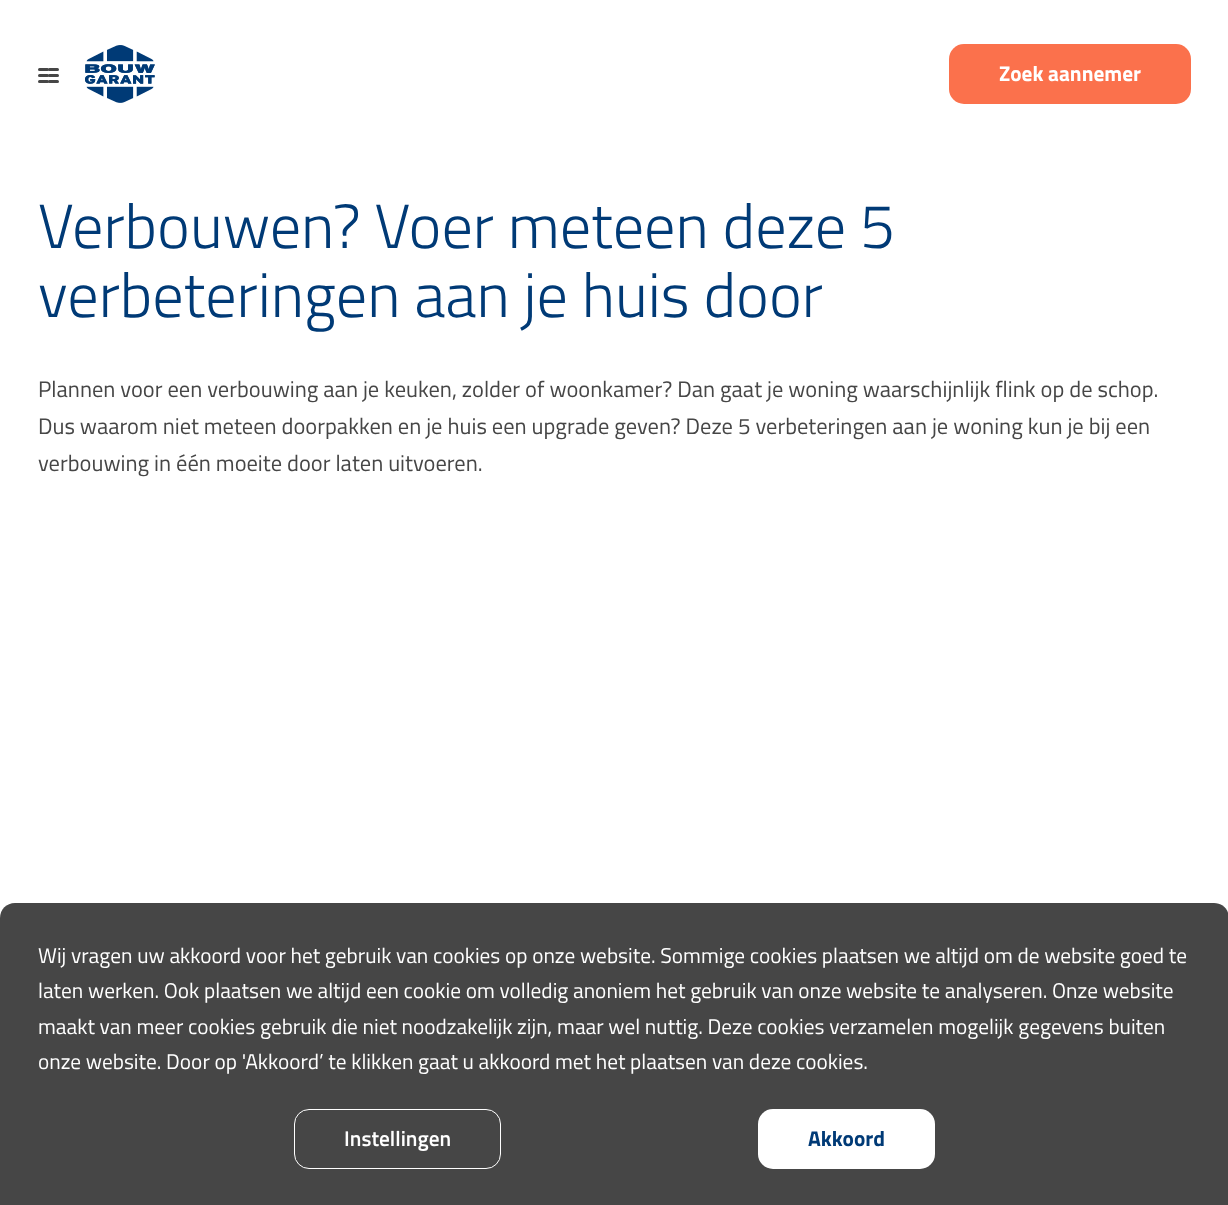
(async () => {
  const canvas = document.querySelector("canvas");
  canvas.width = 1228;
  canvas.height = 1205;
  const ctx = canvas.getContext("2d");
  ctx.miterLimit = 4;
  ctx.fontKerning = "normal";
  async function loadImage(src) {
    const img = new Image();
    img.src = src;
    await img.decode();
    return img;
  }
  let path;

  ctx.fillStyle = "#ffffff";
  ctx.fillRect(0, 0, 1228, 1205);
  ctx.fillStyle = "#464646";
  ctx.beginPath();
  ctx.roundRect(38, 74, 11, 3, 1.5);
  ctx.fill();
  ctx.beginPath();
  ctx.roundRect(38, 68, 11, 3, 1.5);
  ctx.fill();
  ctx.beginPath();
  ctx.roundRect(38, 80, 11, 3, 1.5);
  ctx.fill();
  ctx.beginPath();
  ctx.roundRect(48, 74, 11, 3, 1.5);
  ctx.fill();
  ctx.beginPath();
  ctx.roundRect(48, 68, 11, 3, 1.5);
  ctx.fill();
  ctx.beginPath();
  ctx.roundRect(48, 80, 11, 3, 1.5);
  ctx.fill();
  ctx.drawImage(await loadImage("img/1.png"), 85, 45, 70, 58);
  ctx.fillStyle = "#fb714c";
  ctx.beginPath();
  ctx.roundRect(949, 44, 242, 60, 15);
  ctx.fill();
  ctx.fillStyle = "#464646";
  path = new Path2D("M15 903H1214C1222.5 903 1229 909.5 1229 918V1205H0V918C0 909.5 6.5 903 15 903Z");
  ctx.fill(path);
  ctx.beginPath();
  ctx.roundRect(294.5, 1109.5, 206, 59, 14.5);
  ctx.strokeStyle = "#ffffff";
  ctx.stroke();
  ctx.fillStyle = "#ffffff";
  ctx.beginPath();
  ctx.roundRect(758, 1109, 177, 60, 15);
  ctx.fill();
  ctx.font = "bold 21.33px Titillium Web";
  ctx.fillText("Zoek aannemer", 999, 81);
  ctx.font = "300 62.4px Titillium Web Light";
  ctx.fillStyle = "#003a76";
  ctx.fillText("Verbouwen? Voer meteen deze 5", 38, 248);
  ctx.fillText("verbeteringen aan je huis door", 38, 317);
  ctx.font = "22.5px Titillium Web";
  ctx.fillStyle = "#464646";
  for (const [text, x, y] of [
    ["Plannen voor een verbouwing aan je keuken, zolder of woonkamer? Dan gaat je woning waarschijnlijk flink op de schop.", 38, 397],
    ["Dus waarom niet meteen doorpakken en je huis een upgrade geven? Deze 5 verbeteringen aan je woning kun je bij een", 38, 434],
    ["verbouwing in één moeite door laten uitvoeren.", 38, 471],
  ]) {
    ctx.fillText(text, x, y);
  }
  ctx.font = "21.33px Titillium Web";
  ctx.fillStyle = "#ffffff";
  for (const [text, x, y] of [
    ["Wij vragen uw akkoord voor het gebruik van cookies op onze website. Sommige cookies plaatsen we altijd om de website goed te", 38, 963],
    ["laten werken. Ook plaatsen we altijd een cookie om volledig anoniem het gebruik van onze website te analyseren. Onze website", 38, 998],
    ["maakt van meer cookies gebruik die niet noodzakelijk zijn, maar wel nuttig. Deze cookies verzamelen mogelijk gegevens buiten", 38, 1034],
    ["onze website. Door op 'Akkoord’ te klikken gaat u akkoord met het plaatsen van deze cookies.", 38, 1069],
  ]) {
    ctx.fillText(text, x, y);
  }
  ctx.font = "600 21.33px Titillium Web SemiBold";
  ctx.fillText("Instellingen", 344, 1146);
  ctx.font = "bold 21.33px Titillium Web";
  ctx.fillStyle = "#003a76";
  ctx.fillText("Akkoord", 808, 1146);
})();
